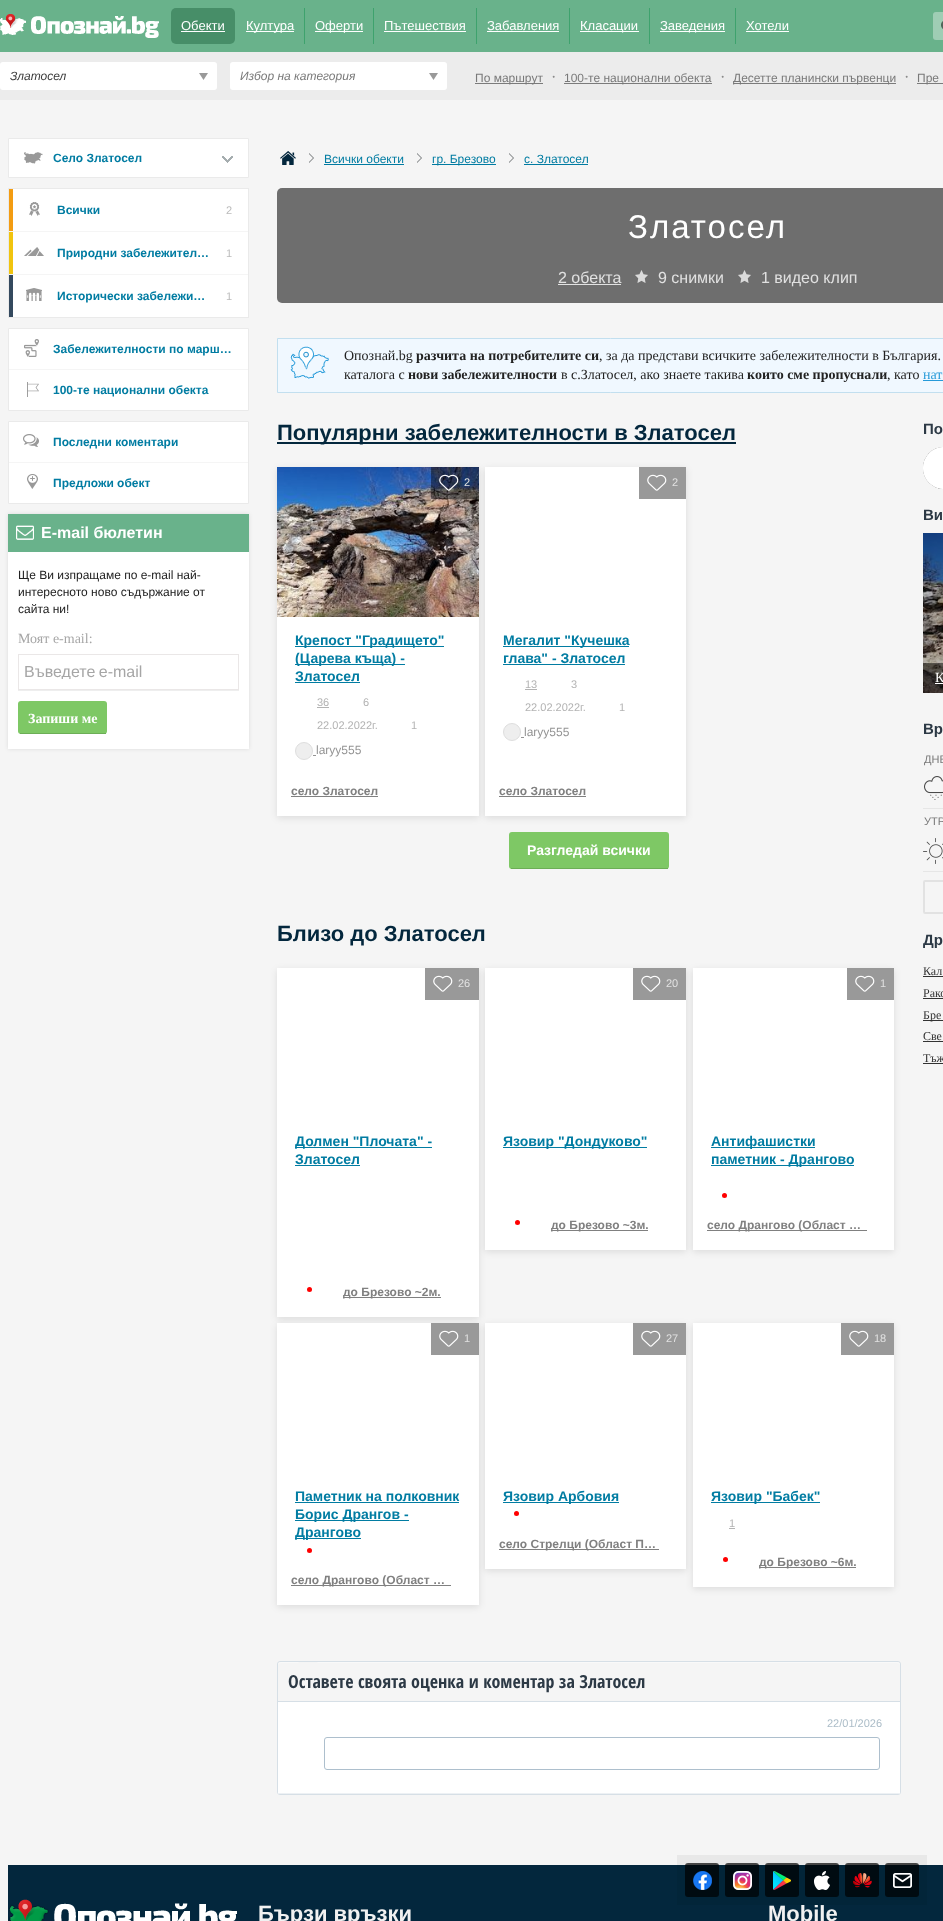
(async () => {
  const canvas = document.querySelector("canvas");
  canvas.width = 943;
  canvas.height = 1921;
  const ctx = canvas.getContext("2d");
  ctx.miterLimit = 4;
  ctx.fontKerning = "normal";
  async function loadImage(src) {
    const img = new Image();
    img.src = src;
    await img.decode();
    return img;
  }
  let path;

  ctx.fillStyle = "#f5f5f5";
  ctx.fillRect(0, 0, 943, 1921);
  ctx.fillStyle = "#69b28b";
  ctx.fillRect(0, 0, 943, 52);
  ctx.drawImage(await loadImage("img/1.png"), 0, 14, 159, 24);
  ctx.fillStyle = "#478e68";
  ctx.beginPath();
  ctx.roundRect(171, 8, 64, 36, 5);
  ctx.fill();
  for (const [x, y, w, h, color] of [
    [181, 31, 44, 1, "#ffffff"],
    [246, 31, 48, 1, "#ffffff"],
    [304, 8, 1, 36, "#3ea26d"],
    [315, 31, 48, 1, "#ffffff"],
    [373, 8, 1, 36, "#3ea26d"],
    [384, 31, 82, 1, "#ffffff"],
    [476, 8, 1, 36, "#3ea26d"],
    [487, 31, 72, 1, "#ffffff"],
    [569, 8, 1, 36, "#3ea26d"],
    [580, 31, 59, 1, "#ffffff"],
    [649, 8, 1, 36, "#3ea26d"],
    [660, 31, 65, 1, "#ffffff"],
    [735, 8, 1, 36, "#3ea26d"],
    [746, 31, 43, 1, "#ffffff"],
  ]) {
    ctx.fillStyle = color;
    ctx.fillRect(x, y, w, h);
  }
  ctx.fillStyle = "#87c1a2";
  ctx.beginPath();
  ctx.roundRect(933, 12, 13, 28, 3);
  ctx.fill();
  ctx.fillStyle = "rgba(255, 255, 255, 0.2)";
  ctx.beginPath();
  ctx.roundRect(933, 12, 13, 28, 3);
  ctx.fill();
  ctx.drawImage(await loadImage("img/2.png"), 941, 21, 2, 8);
  ctx.fillStyle = "#ececec";
  ctx.fillRect(0, 52, 943, 48);
  ctx.fillStyle = "#ffffff";
  ctx.beginPath();
  ctx.roundRect(0, 62, 217, 28, 3);
  ctx.fill();
  ctx.drawImage(await loadImage("img/3.png"), 199, 73, 9, 7);
  ctx.beginPath();
  ctx.roundRect(230, 62, 217, 28, 3);
  ctx.fill();
  ctx.drawImage(await loadImage("img/3.png"), 429, 73, 9, 7);
  for (const [x, y, w, h, color] of [
    [475, 83, 68, 1, "#7b7b7b"],
    [564, 83, 148, 1, "#7b7b7b"],
    [733, 83, 163, 1, "#7b7b7b"],
    [917, 83, 26, 1, "#7b7b7b"],
  ]) {
    ctx.fillStyle = color;
    ctx.fillRect(x, y, w, h);
  }
  ctx.fillStyle = "#ffffff";
  ctx.beginPath();
  ctx.rect(8.5, 138.5, 240, 39);
  ctx.fill();
  ctx.strokeStyle = "#eaeaea";
  ctx.stroke();
  ctx.drawImage(await loadImage("img/4.png"), 24, 152, 19, 12);
  ctx.fillStyle = "#a5adaf";
  ctx.fillRect(222, 156, 11, 7);
  ctx.drawImage(await loadImage("img/5.png"), 222, 156, 11, 7);
  ctx.fillStyle = "#ffffff";
  ctx.fillRect(13, 189, 235, 128);
  ctx.strokeRect(8.5, 188.5, 240, 129);
  ctx.fillStyle = "#f5f5f5";
  ctx.fillRect(9, 231, 239, 1);
  ctx.fillStyle = "#f39c12";
  ctx.fillRect(9, 189, 4, 42);
  ctx.drawImage(await loadImage("img/6.png"), 29, 202, 11, 14);
  ctx.fillStyle = "#f5f5f5";
  ctx.fillRect(9, 274, 239, 1);
  ctx.fillStyle = "#f1c40f";
  ctx.fillRect(9, 232, 4, 42);
  ctx.drawImage(await loadImage("img/7.png"), 24, 247, 20, 9);
  ctx.fillStyle = "#34495e";
  ctx.fillRect(9, 275, 4, 42);
  ctx.drawImage(await loadImage("img/8.png"), 26, 288, 16, 13);
  ctx.fillStyle = "#ffffff";
  ctx.beginPath();
  ctx.rect(8.5, 328.5, 240, 82);
  ctx.fill();
  ctx.stroke();
  ctx.fillStyle = "#f5f5f5";
  ctx.fillRect(9, 369, 239, 1);
  ctx.drawImage(await loadImage("img/9.png"), 24, 339, 15, 18);
  ctx.drawImage(await loadImage("img/10.png"), 27, 382, 12, 15);
  ctx.fillStyle = "#ffffff";
  ctx.beginPath();
  ctx.rect(8.5, 421.5, 240, 82);
  ctx.fill();
  ctx.stroke();
  ctx.fillStyle = "#f5f5f5";
  ctx.fillRect(9, 462, 239, 1);
  ctx.drawImage(await loadImage("img/11.png"), 23, 434, 16, 13);
  ctx.drawImage(await loadImage("img/12.png"), 27, 474, 11, 15);
  ctx.fillStyle = "rgba(0, 0, 0, 0.1)";
  ctx.filter = "blur(2px)";
  ctx.beginPath();
  ctx.rect(8, 514, 241, 235);
  ctx.fill();
  ctx.filter = "none";
  ctx.fillStyle = "#ffffff";
  ctx.fillRect(8, 552, 241, 197);
  ctx.fillStyle = "#69b28b";
  ctx.fillRect(8, 514, 241, 38);
  ctx.drawImage(await loadImage("img/13.png"), 16, 525, 18, 15);
  ctx.strokeStyle = "#eae7e7";
  ctx.strokeRect(18.5, 654.5, 220, 35);
  ctx.fillStyle = "#eeeeee";
  ctx.fillRect(18, 690, 221, 1);
  ctx.fillStyle = "#7ec865";
  ctx.beginPath();
  ctx.roundRect(18, 701, 89, 33, 3);
  ctx.fill();
  ctx.fillStyle = "#6cae56";
  ctx.fillRect(20, 733, 86, 1);
  ctx.drawImage(await loadImage("img/14.png"), 280, 151, 16, 14);
  ctx.fillStyle = "#6b6f71";
  path = new Path2D("M309 163V153L314 158Z");
  ctx.fill(path);
  ctx.fillStyle = "#f5f5f5";
  path = new Path2D("M308 163V153L313 158Z");
  ctx.fill(path);
  ctx.fillStyle = "#6b6f71";
  path = new Path2D("M417 163V153L422 158Z");
  ctx.fill(path);
  ctx.fillStyle = "#f5f5f5";
  path = new Path2D("M416 163V153L421 158Z");
  ctx.fill(path);
  ctx.fillStyle = "#007ba2";
  ctx.fillRect(324, 164, 80, 1);
  ctx.fillStyle = "#6b6f71";
  path = new Path2D("M509 163V153L514 158Z");
  ctx.fill(path);
  ctx.fillStyle = "#f5f5f5";
  path = new Path2D("M508 163V153L513 158Z");
  ctx.fill(path);
  ctx.fillStyle = "#007ba2";
  ctx.fillRect(432, 164, 64, 1);
  ctx.fillRect(524, 164, 64, 1);
  ctx.fillStyle = "#6e6e6e";
  ctx.beginPath();
  ctx.roundRect(277, 188, 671, 115, 5);
  ctx.fill();
  ctx.fillStyle = "#e2e2e2";
  ctx.fillRect(558, 284, 63, 1);
  ctx.drawImage(await loadImage("img/15.png"), 635, 270, 13, 13);
  ctx.drawImage(await loadImage("img/15.png"), 738, 270, 13, 13);
  ctx.fillStyle = "#f0f8ff";
  ctx.beginPath();
  ctx.rect(277.5, 338.5, 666, 54);
  ctx.fill();
  ctx.strokeStyle = "#c2dfef";
  ctx.stroke();
  ctx.drawImage(await loadImage("img/16.png"), 290, 346, 39, 33);
  ctx.fillStyle = "#269ad9";
  ctx.fillRect(923, 380, 20, 1);
  ctx.fillStyle = "#03273d";
  ctx.fillRect(277, 442, 459, 2);
  ctx.fillStyle = "rgba(0, 0, 0, 0.1)";
  ctx.filter = "blur(3.5px)";
  ctx.beginPath();
  ctx.rect(277, 469, 202, 349);
  ctx.fill();
  ctx.filter = "none";
  ctx.fillStyle = "#ffffff";
  ctx.fillRect(277, 617, 202, 199);
  ctx.drawImage(await loadImage("img/17.png"), 277, 467, 202, 150);
  ctx.fillStyle = "rgba(0, 0, 0, 0.4)";
  ctx.fillRect(431, 467, 48, 32);
  ctx.drawImage(await loadImage("img/18.png"), 439, 474, 20, 17);
  for (const [x, y, w, h, color] of [
    [295, 646, 149, 1, "#017ca2"],
    [295, 664, 110, 1, "#017ca2"],
    [295, 682, 65, 1, "#017ca2"],
    [317, 707, 12, 1, "#b3b3b3"],
  ]) {
    ctx.fillStyle = color;
    ctx.fillRect(x, y, w, h);
  }
  ctx.fillStyle = "#eeeeee";
  ctx.beginPath();
  ctx.arc(304, 751, 8.5, 0, Math.PI * 2);
  ctx.fill();
  ctx.strokeStyle = "#dedede";
  ctx.stroke();
  ctx.fillStyle = "#949494";
  ctx.fillRect(313, 755, 3, 1);
  ctx.fillStyle = "#808080";
  ctx.fillRect(291, 796, 87, 1);
  ctx.fillStyle = "rgba(0, 0, 0, 0.1)";
  ctx.filter = "blur(3.5px)";
  ctx.beginPath();
  ctx.rect(485, 469, 201, 349);
  ctx.fill();
  ctx.filter = "none";
  ctx.fillStyle = "#ffffff";
  ctx.fillRect(485, 467, 201, 349);
  ctx.fillStyle = "#999999";
  ctx.fillRect(639, 467, 47, 32);
  ctx.drawImage(await loadImage("img/19.png"), 647, 474, 20, 17);
  for (const [x, y, w, h, color] of [
    [503, 646, 126, 1, "#017ca2"],
    [503, 664, 122, 1, "#017ca2"],
    [525, 689, 12, 1, "#b3b3b3"],
  ]) {
    ctx.fillStyle = color;
    ctx.fillRect(x, y, w, h);
  }
  ctx.fillStyle = "#eeeeee";
  ctx.beginPath();
  ctx.arc(512, 732, 8.5, 0, Math.PI * 2);
  ctx.fill();
  ctx.stroke();
  ctx.fillStyle = "#949494";
  ctx.fillRect(521, 737, 3, 1);
  ctx.fillStyle = "#808080";
  ctx.fillRect(499, 796, 87, 1);
  ctx.fillStyle = "#7ec865";
  ctx.beginPath();
  ctx.roundRect(509, 832, 160, 37, 3);
  ctx.fill();
  ctx.fillStyle = "#6cae56";
  ctx.fillRect(511, 868, 157, 1);
  ctx.fillStyle = "rgba(0, 0, 0, 0.1)";
  ctx.filter = "blur(3.5px)";
  ctx.beginPath();
  ctx.rect(277, 970, 202, 349);
  ctx.fill();
  ctx.filter = "none";
  ctx.fillStyle = "#ffffff";
  ctx.fillRect(277, 968, 202, 349);
  ctx.fillStyle = "#999999";
  ctx.fillRect(425, 968, 54, 32);
  ctx.drawImage(await loadImage("img/19.png"), 433, 975, 20, 17);
  ctx.fillStyle = "#017ca2";
  ctx.fillRect(295, 1147, 137, 1);
  ctx.fillRect(295, 1165, 65, 1);
  ctx.fillStyle = "#ff0000";
  ctx.beginPath();
  ctx.arc(309.5, 1289.5, 2.5, 0, Math.PI * 2);
  ctx.fill();
  ctx.fillStyle = "#808080";
  ctx.fillRect(343, 1297, 98, 1);
  ctx.fillStyle = "rgba(0, 0, 0, 0.1)";
  ctx.filter = "blur(3.5px)";
  ctx.beginPath();
  ctx.rect(485, 970, 201, 282);
  ctx.fill();
  ctx.filter = "none";
  ctx.fillStyle = "#ffffff";
  ctx.fillRect(485, 968, 201, 282);
  ctx.fillStyle = "#999999";
  ctx.fillRect(633, 968, 53, 32);
  ctx.drawImage(await loadImage("img/19.png"), 641, 975, 20, 17);
  ctx.fillStyle = "#017ca2";
  ctx.fillRect(503, 1147, 144, 1);
  ctx.fillStyle = "#ff0000";
  ctx.beginPath();
  ctx.arc(517.5, 1222.5, 2.5, 0, Math.PI * 2);
  ctx.fill();
  ctx.fillStyle = "#808080";
  ctx.fillRect(551, 1230, 97, 1);
  ctx.fillStyle = "rgba(0, 0, 0, 0.1)";
  ctx.filter = "blur(3.5px)";
  ctx.beginPath();
  ctx.rect(693, 970, 201, 282);
  ctx.fill();
  ctx.filter = "none";
  ctx.fillStyle = "#ffffff";
  ctx.fillRect(693, 968, 201, 282);
  ctx.fillStyle = "#999999";
  ctx.fillRect(847, 968, 47, 32);
  ctx.drawImage(await loadImage("img/19.png"), 855, 975, 20, 17);
  ctx.fillStyle = "#017ca2";
  ctx.fillRect(711, 1147, 104, 1);
  ctx.fillRect(711, 1165, 143, 1);
  ctx.fillStyle = "#ff0000";
  ctx.beginPath();
  ctx.arc(724.5, 1195.5, 2.5, 0, Math.PI * 2);
  ctx.fill();
  ctx.fillStyle = "#808080";
  ctx.fillRect(707, 1230, 160, 1);
  ctx.fillStyle = "rgba(0, 0, 0, 0.1)";
  ctx.filter = "blur(3.5px)";
  ctx.beginPath();
  ctx.rect(277, 1325, 202, 282);
  ctx.fill();
  ctx.filter = "none";
  ctx.fillStyle = "#ffffff";
  ctx.fillRect(277, 1323, 202, 282);
  ctx.fillStyle = "#999999";
  ctx.fillRect(431, 1323, 48, 32);
  ctx.drawImage(await loadImage("img/19.png"), 439, 1330, 20, 17);
  for (const [x, y, w, h, color] of [
    [295, 1502, 164, 1, "#017ca2"],
    [295, 1520, 114, 1, "#017ca2"],
    [295, 1538, 66, 1, "#017ca2"],
  ]) {
    ctx.fillStyle = color;
    ctx.fillRect(x, y, w, h);
  }
  ctx.fillStyle = "#ff0000";
  ctx.beginPath();
  ctx.arc(309.5, 1550.5, 2.5, 0, Math.PI * 2);
  ctx.fill();
  ctx.fillStyle = "#808080";
  ctx.fillRect(291, 1585, 160, 1);
  ctx.fillStyle = "rgba(0, 0, 0, 0.1)";
  ctx.filter = "blur(3.5px)";
  ctx.beginPath();
  ctx.rect(485, 1325, 201, 246);
  ctx.fill();
  ctx.filter = "none";
  ctx.fillStyle = "#ffffff";
  ctx.fillRect(485, 1323, 201, 246);
  ctx.fillStyle = "#999999";
  ctx.fillRect(633, 1323, 53, 32);
  ctx.drawImage(await loadImage("img/19.png"), 641, 1330, 20, 17);
  ctx.fillStyle = "#017ca2";
  ctx.fillRect(503, 1502, 116, 1);
  ctx.fillStyle = "#ff0000";
  ctx.beginPath();
  ctx.arc(516.5, 1513.5, 2.5, 0, Math.PI * 2);
  ctx.fill();
  ctx.fillStyle = "#808080";
  ctx.fillRect(499, 1549, 160, 1);
  ctx.fillStyle = "rgba(0, 0, 0, 0.1)";
  ctx.filter = "blur(3.5px)";
  ctx.beginPath();
  ctx.rect(693, 1325, 201, 264);
  ctx.fill();
  ctx.filter = "none";
  ctx.fillStyle = "#ffffff";
  ctx.fillRect(693, 1323, 201, 264);
  ctx.fillStyle = "#999999";
  ctx.fillRect(841, 1323, 53, 32);
  ctx.drawImage(await loadImage("img/19.png"), 849, 1330, 20, 17);
  ctx.fillStyle = "#017ca2";
  ctx.fillRect(711, 1502, 109, 1);
  ctx.fillStyle = "#b3b3b3";
  ctx.fillRect(729, 1528, 6, 1);
  ctx.fillStyle = "#ff0000";
  ctx.beginPath();
  ctx.arc(725.5, 1559.5, 2.5, 0, Math.PI * 2);
  ctx.fill();
  ctx.fillStyle = "#808080";
  ctx.fillRect(759, 1567, 97, 1);
  ctx.beginPath();
  ctx.roundRect(277.5, 1661.5, 623, 133, 2.5);
  ctx.strokeStyle = "#d6dfe6";
  ctx.stroke();
  ctx.fillStyle = "#f9f9f9";
  path = new Path2D("M281 1663H897C899 1663 900 1664 900 1666V1665C900 1663 899 1662 897 1662H281C279 1662 278 1663 278 1665V1666C278 1664 279 1663 281 1663Z");
  ctx.fill(path);
  ctx.fillStyle = "#d6dfe6";
  ctx.fillRect(278, 1701, 622, 1);
  ctx.fillStyle = "#f5f5f5";
  path = new Path2D("M318 1663L317 1662H299L298 1663Z");
  ctx.fill(path);
  ctx.fillStyle = "#ffffff";
  ctx.fillRect(278, 1702, 622, 91);
  ctx.fillStyle = "#edf1f4";
  ctx.fillRect(278, 1793, 622, 1);
  ctx.beginPath();
  ctx.roundRect(324.5, 1737.5, 555, 32, 2.5);
  ctx.strokeStyle = "#adbfcd";
  ctx.stroke();
  ctx.fillStyle = "#000000";
  ctx.filter = "blur(0.5px)";
  ctx.beginPath();
  ctx.roundRect(923, 447, 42, 42, 21);
  ctx.fill();
  ctx.filter = "none";
  ctx.drawImage(await loadImage("img/20.png"), 923, 447, 20, 42);
  ctx.beginPath();
  ctx.arc(944, 468, 20, 0, Math.PI * 2);
  ctx.strokeStyle = "#ffffff";
  ctx.lineWidth = 2;
  ctx.stroke();
  ctx.drawImage(await loadImage("img/21.png"), 923, 533, 20, 160);
  ctx.fillStyle = "rgba(0, 0, 0, 0.5)";
  ctx.fillRect(923, 663, 20, 30);
  ctx.fillStyle = "#ffffff";
  ctx.fillRect(935, 683, 8, 1);
  ctx.drawImage(await loadImage("img/22.png"), 924, 776, 19, 24);
  ctx.fillStyle = "#e6e6e6";
  ctx.fillRect(923, 808, 20, 1);
  ctx.drawImage(await loadImage("img/23.png"), 923, 838, 20, 26);
  ctx.fillRect(923, 871, 20, 1);
  ctx.beginPath();
  ctx.roundRect(924, 881, 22, 32, 1);
  ctx.strokeStyle = "#e2e2e2";
  ctx.stroke();
  for (const [x, y, w, h, color] of [
    [923, 976, 20, 1, "#333333"],
    [923, 998, 20, 1, "#333333"],
    [923, 1020, 20, 1, "#333333"],
    [923, 1041, 20, 1, "#333333"],
    [923, 1063, 20, 1, "#333333"],
    [8, 1865, 935, 56, "#03273d"],
    [677, 1855, 250, 50, "rgba(0, 0, 0, 0.05)"],
  ]) {
    ctx.fillStyle = color;
    ctx.fillRect(x, y, w, h);
  }
  ctx.fillStyle = "rgba(0, 0, 0, 0.7)";
  ctx.beginPath();
  ctx.roundRect(685, 1863, 34, 34, 3);
  ctx.fill();
  ctx.drawImage(await loadImage("img/24.png"), 693, 1871, 19, 19);
  ctx.beginPath();
  ctx.roundRect(725, 1863, 34, 34, 3);
  ctx.fill();
  ctx.drawImage(await loadImage("img/25.png"), 733, 1871, 19, 19);
  ctx.beginPath();
  ctx.roundRect(765, 1863, 34, 34, 3);
  ctx.fill();
  ctx.drawImage(await loadImage("img/26.png"), 773, 1871, 18, 19);
  ctx.beginPath();
  ctx.roundRect(805, 1863, 34, 34, 3);
  ctx.fill();
  ctx.drawImage(await loadImage("img/27.png"), 814, 1871, 16, 19);
  ctx.beginPath();
  ctx.roundRect(845, 1863, 34, 34, 3);
  ctx.fill();
  ctx.drawImage(await loadImage("img/28.png"), 853, 1873, 19, 15);
  ctx.beginPath();
  ctx.roundRect(885, 1863, 34, 34, 3);
  ctx.fill();
  ctx.drawImage(await loadImage("img/29.png"), 893, 1873, 19, 15);
  ctx.drawImage(await loadImage("img/30.png"), 9, 1899, 228, 22);
  ctx.font = "13px Liberation Sans";
  ctx.fillStyle = "#ffffff";
  for (const [text, x, y] of [
    ["Обекти", 181, 30],
    ["Култура", 246, 30],
    ["Оферти", 315, 30],
    ["Пътешествия", 384, 30],
    ["Забавления", 487, 30],
    ["Класации", 580, 30],
    ["Заведения", 660, 30],
    ["Хотели", 746, 30],
  ]) {
    ctx.fillText(text, x, y);
  }
  ctx.font = "italic 12px Liberation Sans";
  ctx.fillStyle = "#3c3c3c";
  ctx.fillText("Златосел", 10, 80);
  ctx.fillStyle = "#797979";
  ctx.fillText("Избор на категория", 240, 80);
  ctx.font = "12px Liberation Sans";
  ctx.fillText("По маршрут", 475, 82);
  ctx.font = "16px Liberation Serif";
  ctx.fillStyle = "#8a8a8a";
  ctx.fillText("·", 551, 82);
  ctx.font = "12px Liberation Sans";
  ctx.fillStyle = "#797979";
  ctx.fillText("100-те национални обекта", 564, 82);
  ctx.font = "16px Liberation Serif";
  ctx.fillStyle = "#8a8a8a";
  ctx.fillText("·", 720, 82);
  ctx.font = "12px Liberation Sans";
  ctx.fillStyle = "#797979";
  ctx.fillText("Десетте планински първенци", 733, 82);
  ctx.font = "16px Liberation Serif";
  ctx.fillStyle = "#8a8a8a";
  ctx.fillText("·", 904, 82);
  ctx.font = "12px Liberation Sans";
  ctx.fillStyle = "#797979";
  ctx.fillText("Пре", 917, 82);
  ctx.font = "bold 12px Liberation Sans";
  ctx.fillStyle = "#017ca2";
  ctx.fillText("Село Златосел", 53, 162);
  ctx.fillText("Всички", 57, 214);
  ctx.font = "11px Liberation Sans";
  ctx.fillStyle = "#bbbbbb";
  ctx.fillText("2", 226, 214);
  ctx.font = "bold 12px Liberation Sans";
  ctx.fillStyle = "#017ca2";
  ctx.fillText("Природни забележител…", 57, 257);
  ctx.font = "11px Liberation Sans";
  ctx.fillStyle = "#bbbbbb";
  ctx.fillText("1", 226, 257);
  ctx.font = "bold 12px Liberation Sans";
  ctx.fillStyle = "#017ca2";
  ctx.fillText("Исторически забележи…", 57, 300);
  ctx.font = "11px Liberation Sans";
  ctx.fillStyle = "#bbbbbb";
  ctx.fillText("1", 226, 300);
  ctx.font = "bold 12px Liberation Sans";
  ctx.fillStyle = "#017ca2";
  for (const [text, x, y] of [
    ["Забележителности по марш…", 53, 353],
    ["100-те национални обекта", 53, 394],
    ["Последни коментари", 53, 446],
    ["Предложи обект", 53, 487],
  ]) {
    ctx.fillText(text, x, y);
  }
  ctx.font = "bold 16px Liberation Sans";
  ctx.fillStyle = "#ffffff";
  ctx.fillText("E-mail бюлетин", 41, 538);
  ctx.font = "12px Liberation Sans";
  ctx.fillStyle = "#222222";
  for (const [text, x, y] of [
    ["Ще Ви изпращаме по e-mail най-", 18, 579],
    ["интересното ново съдържание от", 18, 596],
    ["сайта ни!", 18, 613],
  ]) {
    ctx.fillText(text, x, y);
  }
  ctx.font = "14px Liberation Serif";
  ctx.fillStyle = "#a6a6a6";
  ctx.fillText("Моят e-mail:", 18, 643);
  ctx.save();
  ctx.beginPath();
  ctx.rect(24, 663, 188, 16);
  ctx.clip();
  ctx.wordSpacing = "-1px";
  ctx.font = "16px Liberation Sans";
  ctx.fillText("Въведете e-mail", 24, 677);
  ctx.restore();
  ctx.font = "bold 14px Liberation Serif";
  ctx.fillStyle = "#ffffff";
  ctx.fillText("Запиши ме", 28, 723);
  ctx.font = "12px Liberation Sans";
  ctx.fillStyle = "#017ca2";
  for (const [text, x, y] of [
    ["Всички обекти", 324, 163],
    ["гр. Брезово", 432, 163],
    ["с. Златосел", 524, 163],
  ]) {
    ctx.fillText(text, x, y);
  }
  ctx.letterSpacing = "2px";
  ctx.font = "33px Liberation Sans";
  ctx.fillStyle = "#ffffff";
  ctx.fillText("Златосел", 628, 238);
  ctx.letterSpacing = "0px";
  ctx.font = "16px Liberation Sans";
  ctx.fillStyle = "#e1e1e1";
  for (const [text, x, y] of [
    ["2 обекта", 558, 283],
    ["9 снимки", 658, 283],
    ["1 видео клип", 761, 283],
  ]) {
    ctx.fillText(text, x, y);
  }
  ctx.font = "14px Liberation Serif";
  ctx.fillStyle = "#222222";
  ctx.fillText("Опознай.bg", 344, 360);
  ctx.font = "bold 14px Liberation Serif";
  ctx.fillText("разчита на потребителите си", 416, 360);
  ctx.font = "14px Liberation Serif";
  ctx.fillText(", за да представи всичките забележителности в България.", 599, 360);
  ctx.fillText("каталога с", 344, 379);
  ctx.font = "bold 14px Liberation Serif";
  ctx.fillText("нови забележителности", 408, 379);
  ctx.font = "14px Liberation Serif";
  ctx.fillText("в c.Златосел, ако знаете такива", 561, 379);
  ctx.font = "bold 14px Liberation Serif";
  ctx.fillText("които сме пропуснали", 747, 379);
  ctx.font = "14px Liberation Serif";
  ctx.fillText(", като", 887, 379);
  ctx.fillStyle = "#269ad9";
  ctx.fillText("нат", 923, 379);
  ctx.font = "bold 22px Liberation Sans";
  ctx.fillStyle = "#03273d";
  ctx.fillText("Популярни забележителности в Златосел", 277, 440);
  ctx.font = "11px Liberation Sans";
  ctx.fillStyle = "#e1e1e1";
  ctx.fillText("2", 464, 486);
  ctx.font = "bold 14px Liberation Sans";
  ctx.fillStyle = "#017ca2";
  for (const [text, x, y] of [
    ["Крепост \"Градището\"", 295, 645],
    ["(Царева къща) -", 295, 663],
    ["Златосел", 295, 681],
  ]) {
    ctx.fillText(text, x, y);
  }
  ctx.font = "11px Liberation Sans";
  ctx.fillStyle = "#b3b3b3";
  for (const [text, x, y] of [
    ["36", 317, 706],
    ["6", 363, 706],
    ["22.02.2022г.", 317, 729],
    ["1", 411, 729],
  ]) {
    ctx.fillText(text, x, y);
  }
  ctx.font = "12px Liberation Sans";
  ctx.fillStyle = "#949494";
  ctx.fillText("laryy555", 316, 754);
  ctx.font = "bold 12px Liberation Sans";
  ctx.fillStyle = "#808080";
  ctx.fillText("село Златосел", 291, 795);
  ctx.font = "11px Liberation Sans";
  ctx.fillStyle = "#e1e1e1";
  ctx.fillText("2", 672, 486);
  ctx.font = "bold 14px Liberation Sans";
  ctx.fillStyle = "#017ca2";
  ctx.fillText("Мегалит \"Кучешка", 503, 645);
  ctx.fillText("глава\" - Златосел", 503, 663);
  ctx.font = "11px Liberation Sans";
  ctx.fillStyle = "#b3b3b3";
  for (const [text, x, y] of [
    ["13", 525, 688],
    ["3", 571, 688],
    ["22.02.2022г.", 525, 711],
    ["1", 619, 711],
  ]) {
    ctx.fillText(text, x, y);
  }
  ctx.font = "12px Liberation Sans";
  ctx.fillStyle = "#949494";
  ctx.fillText("laryy555", 524, 736);
  ctx.font = "bold 12px Liberation Sans";
  ctx.fillStyle = "#808080";
  ctx.fillText("село Златосел", 499, 795);
  ctx.font = "bold 14px Liberation Sans";
  ctx.fillStyle = "#ffffff";
  ctx.fillText("Разгледай всички", 527, 855);
  ctx.font = "bold 22px Liberation Sans";
  ctx.fillStyle = "#03273d";
  ctx.fillText("Близо до Златосел", 277, 941);
  ctx.font = "11px Liberation Sans";
  ctx.fillStyle = "#e1e1e1";
  ctx.fillText("26", 458, 987);
  ctx.font = "bold 14px Liberation Sans";
  ctx.fillStyle = "#017ca2";
  ctx.fillText("Долмен \"Плочата\" -", 295, 1146);
  ctx.fillText("Златосел", 295, 1164);
  ctx.font = "bold 12px Liberation Sans";
  ctx.fillStyle = "#808080";
  ctx.fillText("до Брезово ~2м.", 343, 1296);
  ctx.font = "11px Liberation Sans";
  ctx.fillStyle = "#e1e1e1";
  ctx.fillText("20", 666, 987);
  ctx.font = "bold 14px Liberation Sans";
  ctx.fillStyle = "#017ca2";
  ctx.fillText("Язовир \"Дондуково\"", 503, 1146);
  ctx.save();
  ctx.beginPath();
  ctx.rect(551, 1210, 97, 30);
  ctx.clip();
  ctx.font = "bold 12px Liberation Sans";
  ctx.fillStyle = "#808080";
  ctx.fillText("до Брезово ~3м.", 551, 1229);
  ctx.restore();
  ctx.font = "11px Liberation Sans";
  ctx.fillStyle = "#e1e1e1";
  ctx.fillText("1", 880, 987);
  ctx.font = "bold 14px Liberation Sans";
  ctx.fillStyle = "#017ca2";
  ctx.fillText("Антифашистки", 711, 1146);
  ctx.fillText("паметник - Дрангово", 711, 1164);
  ctx.font = "bold 12px Liberation Sans";
  ctx.fillStyle = "#808080";
  ctx.fillText("село Дрангово (Област …", 707, 1229);
  ctx.font = "11px Liberation Sans";
  ctx.fillStyle = "#e1e1e1";
  ctx.fillText("1", 464, 1342);
  ctx.font = "bold 14px Liberation Sans";
  ctx.fillStyle = "#017ca2";
  for (const [text, x, y] of [
    ["Паметник на полковник", 295, 1501],
    ["Борис Дрангов -", 295, 1519],
    ["Дрангово", 295, 1537],
  ]) {
    ctx.fillText(text, x, y);
  }
  ctx.font = "bold 12px Liberation Sans";
  ctx.fillStyle = "#808080";
  ctx.fillText("село Дрангово (Област …", 291, 1584);
  ctx.font = "11px Liberation Sans";
  ctx.fillStyle = "#e1e1e1";
  ctx.fillText("27", 666, 1342);
  ctx.font = "bold 14px Liberation Sans";
  ctx.fillStyle = "#017ca2";
  ctx.fillText("Язовир Арбовия", 503, 1501);
  ctx.font = "bold 12px Liberation Sans";
  ctx.fillStyle = "#808080";
  ctx.fillText("село Стрелци (Област П…", 499, 1548);
  ctx.font = "11px Liberation Sans";
  ctx.fillStyle = "#e1e1e1";
  ctx.fillText("18", 874, 1342);
  ctx.font = "bold 14px Liberation Sans";
  ctx.fillStyle = "#017ca2";
  ctx.fillText("Язовир \"Бабек\"", 711, 1501);
  ctx.font = "11px Liberation Sans";
  ctx.fillStyle = "#b3b3b3";
  ctx.fillText("1", 729, 1527);
  ctx.save();
  ctx.beginPath();
  ctx.rect(759, 1547, 97, 30);
  ctx.clip();
  ctx.font = "bold 12px Liberation Sans";
  ctx.fillStyle = "#808080";
  ctx.fillText("до Брезово ~6м.", 759, 1566);
  ctx.restore();
  ctx.font = "bold 18px Open Sans Condensed";
  ctx.fillStyle = "#2c3945";
  ctx.fillText("Оставете своята оценка и коментар за Златосел", 288, 1688);
  ctx.font = "11px Liberation Sans";
  ctx.fillStyle = "#acbdc8";
  ctx.fillText("22/01/2026", 827, 1727);
  ctx.font = "bold 15px Liberation Sans";
  ctx.fillStyle = "#2c3945";
  ctx.fillText("По", 923, 434);
  ctx.fillText("Ви", 923, 520);
  ctx.font = "14px Liberation Serif";
  ctx.fillStyle = "#ffffff";
  ctx.fillText("К", 935, 682);
  ctx.font = "bold 15px Liberation Sans";
  ctx.fillStyle = "#2c3945";
  ctx.fillText("Вр", 923, 734);
  ctx.font = "11px Liberation Sans";
  ctx.fillStyle = "#797979";
  ctx.fillText("ДНЕ", 924, 763);
  ctx.fillText("УТР", 924, 825);
  ctx.font = "bold 15px Liberation Sans";
  ctx.fillStyle = "#2c3945";
  ctx.fillText("Др", 923, 945);
  ctx.font = "12px Liberation Serif";
  ctx.fillStyle = "#333333";
  for (const [text, x, y] of [
    ["Кал", 923, 975],
    ["Рако", 923, 997],
    ["Бре", 923, 1019],
    ["Све", 923, 1040],
    ["Тъж", 923, 1062],
  ]) {
    ctx.fillText(text, x, y);
  }
  ctx.font = "bold 22px Liberation Sans";
  ctx.fillStyle = "#f1f1f1";
  ctx.fillText("Бързи връзки", 258, 1921);
  ctx.fillText("Mobile", 768, 1921);
})();
